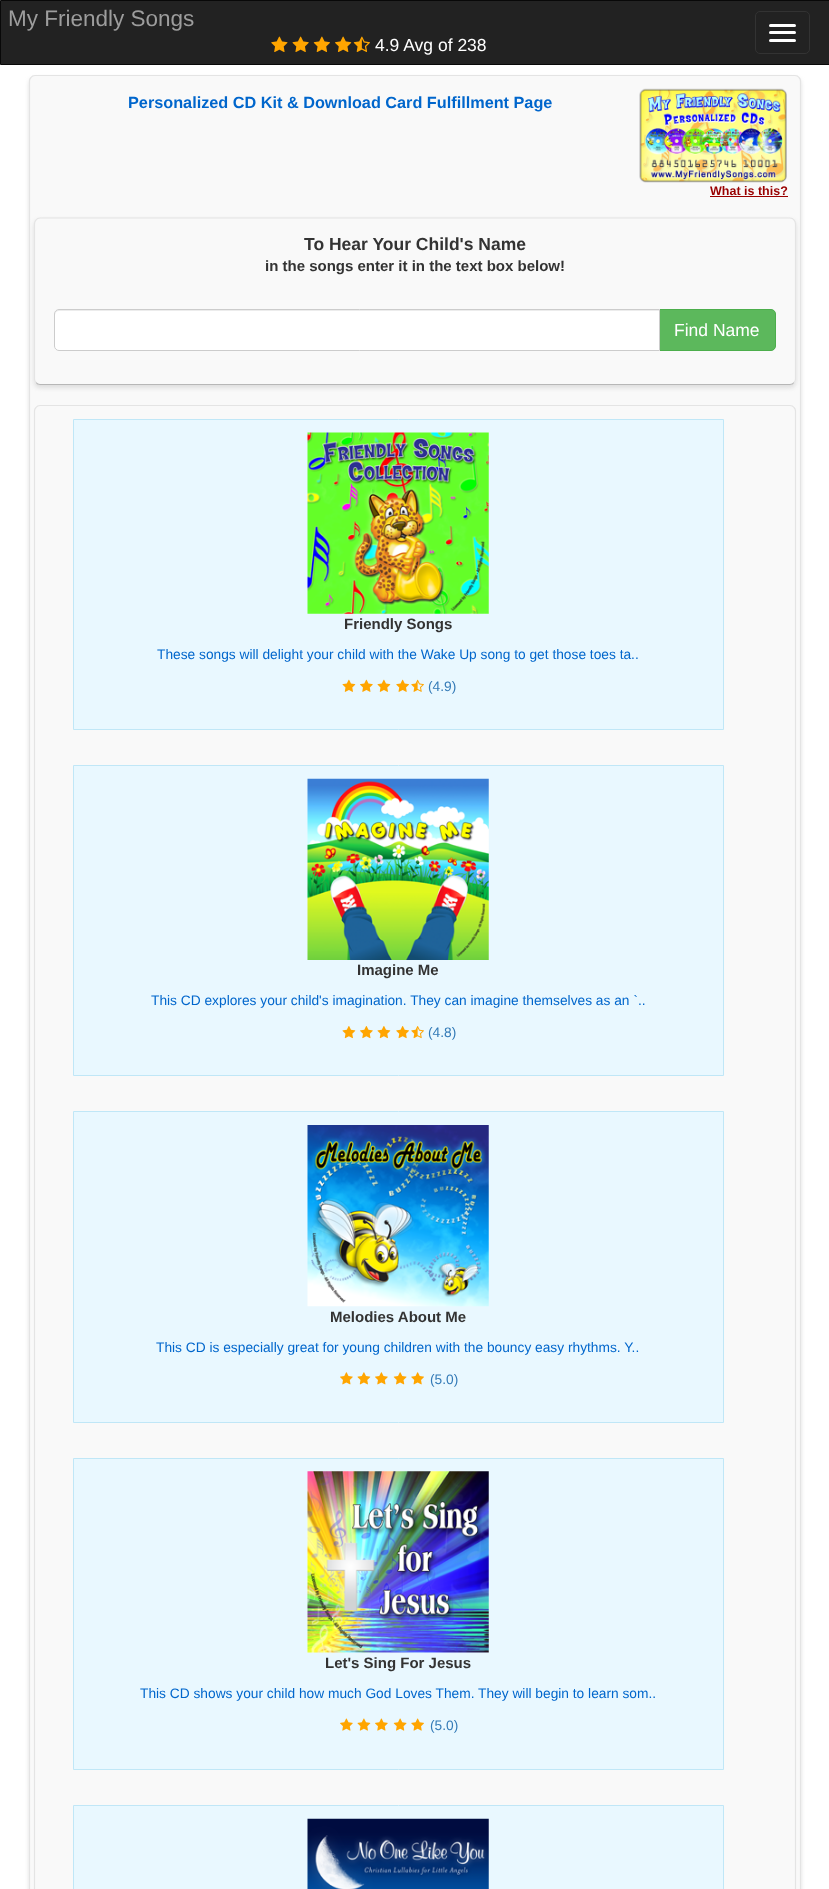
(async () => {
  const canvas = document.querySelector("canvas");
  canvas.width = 829;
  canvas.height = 1889;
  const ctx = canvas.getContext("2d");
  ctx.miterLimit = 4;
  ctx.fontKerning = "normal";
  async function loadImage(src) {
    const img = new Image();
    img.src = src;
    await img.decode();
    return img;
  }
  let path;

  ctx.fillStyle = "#ffffff";
  ctx.fillRect(0, 0, 829, 1889);
  ctx.fillStyle = "#222222";
  ctx.beginPath();
  ctx.rect(0.5, 0.5, 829, 64);
  ctx.fill();
  ctx.strokeStyle = "#080808";
  ctx.stroke();
  ctx.drawImage(await loadImage("img/1.png"), 271, 36, 17, 16);
  ctx.drawImage(await loadImage("img/2.png"), 292, 36, 17, 16);
  ctx.drawImage(await loadImage("img/3.png"), 313, 36, 17, 16);
  ctx.drawImage(await loadImage("img/4.png"), 335, 36, 17, 16);
  ctx.drawImage(await loadImage("img/5.png"), 353, 36, 17, 16);
  ctx.beginPath();
  ctx.roundRect(755.5, 11.5, 54, 42, 4.5);
  ctx.strokeStyle = "#333333";
  ctx.stroke();
  ctx.fillStyle = "#ffffff";
  ctx.beginPath();
  ctx.roundRect(769, 24, 27, 3, 1.5);
  ctx.fill();
  ctx.beginPath();
  ctx.roundRect(769, 31, 27, 3, 1.5);
  ctx.fill();
  ctx.beginPath();
  ctx.roundRect(769, 39, 27, 3, 1.5);
  ctx.fill();
  ctx.fillStyle = "#dedede";
  ctx.filter = "blur(2px)";
  ctx.beginPath();
  ctx.roundRect(29, 78, 772, 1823, 6);
  ctx.fill();
  ctx.filter = "none";
  ctx.fillStyle = "#f9f9f9";
  ctx.beginPath();
  ctx.roundRect(29, 75, 772, 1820, 6);
  ctx.fill();
  path = new Path2D("M31 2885C30 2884 29.5 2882.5 29.5 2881V81C29.5 80 30 78.5 31 77.5C32 76 33.5 75.5 35 75.5H795C796.5 75.5 798 76 799 77.5C800 78.5 800.5 80 800.5 81V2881C800.5 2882.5 800 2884 799 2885");
  ctx.strokeStyle = "#e4e4e4";
  ctx.lineWidth = 1.2;
  ctx.stroke(path);
  ctx.drawImage(await loadImage("img/6.png"), 639, 88, 148, 95);
  ctx.fillStyle = "#990000";
  ctx.fillRect(710, 196, 78, 1);
  ctx.fillStyle = "#dedede";
  ctx.filter = "blur(2px)";
  ctx.beginPath();
  ctx.roundRect(34, 220, 762, 168, 6);
  ctx.fill();
  ctx.filter = "none";
  ctx.fillStyle = "#f9f9f9";
  ctx.beginPath();
  ctx.roundRect(34, 218, 762, 167, 6);
  ctx.fill();
  path = new Path2D("M794 382.5C793 384 791.5 384.5 790 384.5H40C38.5 384.5 37 384 36 382.5");
  ctx.strokeStyle = "#b7b7b7";
  ctx.stroke(path);
  path = new Path2D("M36 382.5C35 381.5 34.5 380 34.5 379V224C34.5 222.5 35 221 36 220C37 218.5 38.5 218 40 218H790C791.5 218 793 218.5 794 220C795 221 795.5 222.5 795.5 224V379C795.5 380 795 381.5 794 382.5");
  ctx.strokeStyle = "#e4e4e4";
  ctx.stroke(path);
  ctx.fillStyle = "#5cb85c";
  ctx.beginPath();
  ctx.roundRect(659.5, 309.5, 116, 41, [0, 4.5, 4.5, 0]);
  ctx.fill();
  ctx.strokeStyle = "#4cae4c";
  ctx.lineWidth = 1;
  ctx.stroke();
  ctx.fillStyle = "#ffffff";
  ctx.beginPath();
  ctx.roundRect(54, 309, 606, 42, [5, 0, 0, 5]);
  ctx.fill();
  ctx.fillStyle = "#ececec";
  path = new Path2D("M59 311H659V310H59C56 310 55 312 55 315C55 313 57 311 59 311Z");
  ctx.fill(path);
  ctx.beginPath();
  ctx.roundRect(54.5, 309.5, 605, 41, [4.5, 0, 0, 4.5]);
  ctx.strokeStyle = "#cccccc";
  ctx.stroke();
  path = new Path2D("M36 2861.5C35 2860.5 34.5 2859 34.5 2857.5V411C34.5 410 35 408.5 36 407.5C37 406 38.5 405.5 40 405.5H790C791.5 405.5 793 406 794 407.5C795 408.5 795.5 410 795.5 411V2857.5C795.5 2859 795 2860.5 794 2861.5");
  ctx.strokeStyle = "#e4e4e4";
  ctx.lineWidth = 1.2;
  ctx.stroke(path);
  ctx.fillStyle = "#e9f8ff";
  ctx.beginPath();
  ctx.rect(73.5, 419.5, 650, 310);
  ctx.fill();
  ctx.strokeStyle = "#c0e7f7";
  ctx.lineWidth = 1;
  ctx.stroke();
  ctx.drawImage(await loadImage("img/7.png"), 307, 432, 182, 182);
  ctx.drawImage(await loadImage("img/8.png"), 342, 679, 14, 13);
  ctx.drawImage(await loadImage("img/9.png"), 360, 679, 13, 13);
  ctx.drawImage(await loadImage("img/8.png"), 377, 679, 14, 13);
  ctx.drawImage(await loadImage("img/10.png"), 396, 679, 13, 13);
  ctx.drawImage(await loadImage("img/11.png"), 411, 679, 13, 13);
  ctx.beginPath();
  ctx.rect(73.5, 765.5, 650, 310);
  ctx.fill();
  ctx.stroke();
  ctx.drawImage(await loadImage("img/12.png"), 307, 778, 182, 182);
  ctx.drawImage(await loadImage("img/13.png"), 342, 1026, 14, 13);
  ctx.drawImage(await loadImage("img/14.png"), 360, 1026, 13, 13);
  ctx.drawImage(await loadImage("img/13.png"), 377, 1026, 14, 13);
  ctx.drawImage(await loadImage("img/15.png"), 396, 1026, 13, 13);
  ctx.drawImage(await loadImage("img/16.png"), 411, 1026, 13, 13);
  ctx.beginPath();
  ctx.rect(73.5, 1111.5, 650, 311);
  ctx.fill();
  ctx.stroke();
  ctx.drawImage(await loadImage("img/17.png"), 307, 1125, 182, 182);
  ctx.drawImage(await loadImage("img/18.png"), 340, 1372, 13, 13);
  ctx.drawImage(await loadImage("img/19.png"), 357, 1372, 14, 13);
  ctx.drawImage(await loadImage("img/18.png"), 375, 1372, 13, 13);
  ctx.drawImage(await loadImage("img/20.png"), 393, 1372, 14, 13);
  ctx.drawImage(await loadImage("img/21.png"), 411, 1372, 13, 13);
  ctx.beginPath();
  ctx.rect(73.5, 1458.5, 650, 311);
  ctx.fill();
  ctx.stroke();
  ctx.drawImage(await loadImage("img/22.png"), 307, 1471, 182, 182);
  ctx.drawImage(await loadImage("img/23.png"), 340, 1718, 13, 13);
  ctx.drawImage(await loadImage("img/24.png"), 357, 1718, 14, 13);
  ctx.drawImage(await loadImage("img/23.png"), 375, 1718, 13, 13);
  ctx.drawImage(await loadImage("img/25.png"), 393, 1718, 14, 13);
  ctx.drawImage(await loadImage("img/26.png"), 411, 1718, 13, 13);
  ctx.beginPath();
  ctx.rect(73.5, 1805.5, 650, 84);
  ctx.fill();
  ctx.stroke();
  ctx.drawImage(await loadImage("img/27.png"), 307, 1818, 182, 71);
  ctx.font = "22.5px Liberation Sans";
  ctx.fillStyle = "#9d9d9d";
  ctx.fillText("My Friendly Songs", 8, 26);
  ctx.font = "17.5px Liberation Sans";
  ctx.fillStyle = "#ffffff";
  ctx.fillText("4.9 Avg of 238", 375, 51);
  ctx.font = "bold 16.25px Liberation Sans";
  ctx.fillStyle = "#0066cc";
  ctx.fillText("Personalized CD Kit & Download Card Fulfillment Page", 128, 108);
  ctx.font = "bold 12.5px Liberation Sans";
  ctx.fillStyle = "#990000";
  ctx.fillText("What is this?", 710, 195);
  ctx.font = "bold 17.5px Liberation Sans";
  ctx.fillStyle = "#333333";
  ctx.fillText("To Hear Your Child's Name", 304, 250);
  ctx.font = "bold 15px Liberation Sans";
  ctx.fillText("in the songs enter it in the text box below!", 265, 271);
  ctx.font = "17.5px Liberation Sans";
  ctx.fillStyle = "#ffffff";
  ctx.fillText("Find Name", 674, 336);
  ctx.font = "bold 15px Liberation Sans";
  ctx.fillStyle = "#333333";
  ctx.fillText("Friendly Songs", 344, 629);
  ctx.font = "13.75px Liberation Sans";
  ctx.fillStyle = "#0066cc";
  ctx.fillText("These songs will delight your child with the Wake Up song to get those toes ta..", 157, 659);
  ctx.fillStyle = "#337ab7";
  ctx.fillText("(4.9)", 428, 691);
  ctx.font = "bold 15px Liberation Sans";
  ctx.fillStyle = "#333333";
  ctx.fillText("Imagine Me", 357, 975);
  ctx.font = "13.75px Liberation Sans";
  ctx.fillStyle = "#0066cc";
  ctx.fillText("This CD explores your child's imagination. They can imagine themselves as an `..", 151, 1005);
  ctx.fillStyle = "#337ab7";
  ctx.fillText("(4.8)", 428, 1037);
  ctx.font = "bold 15px Liberation Sans";
  ctx.fillStyle = "#333333";
  ctx.fillText("Melodies About Me", 330, 1322);
  ctx.font = "13.75px Liberation Sans";
  ctx.fillStyle = "#0066cc";
  ctx.fillText("This CD is especially great for young children with the bouncy easy rhythms. Y..", 156, 1352);
  ctx.fillStyle = "#337ab7";
  ctx.fillText("(5.0)", 430, 1384);
  ctx.font = "bold 15px Liberation Sans";
  ctx.fillStyle = "#333333";
  ctx.fillText("Let's Sing For Jesus", 325, 1668);
  ctx.font = "13.75px Liberation Sans";
  ctx.fillStyle = "#0066cc";
  ctx.fillText("This CD shows your child how much God Loves Them. They will begin to learn som..", 140, 1698);
  ctx.fillStyle = "#337ab7";
  ctx.fillText("(5.0)", 430, 1730);
})();
